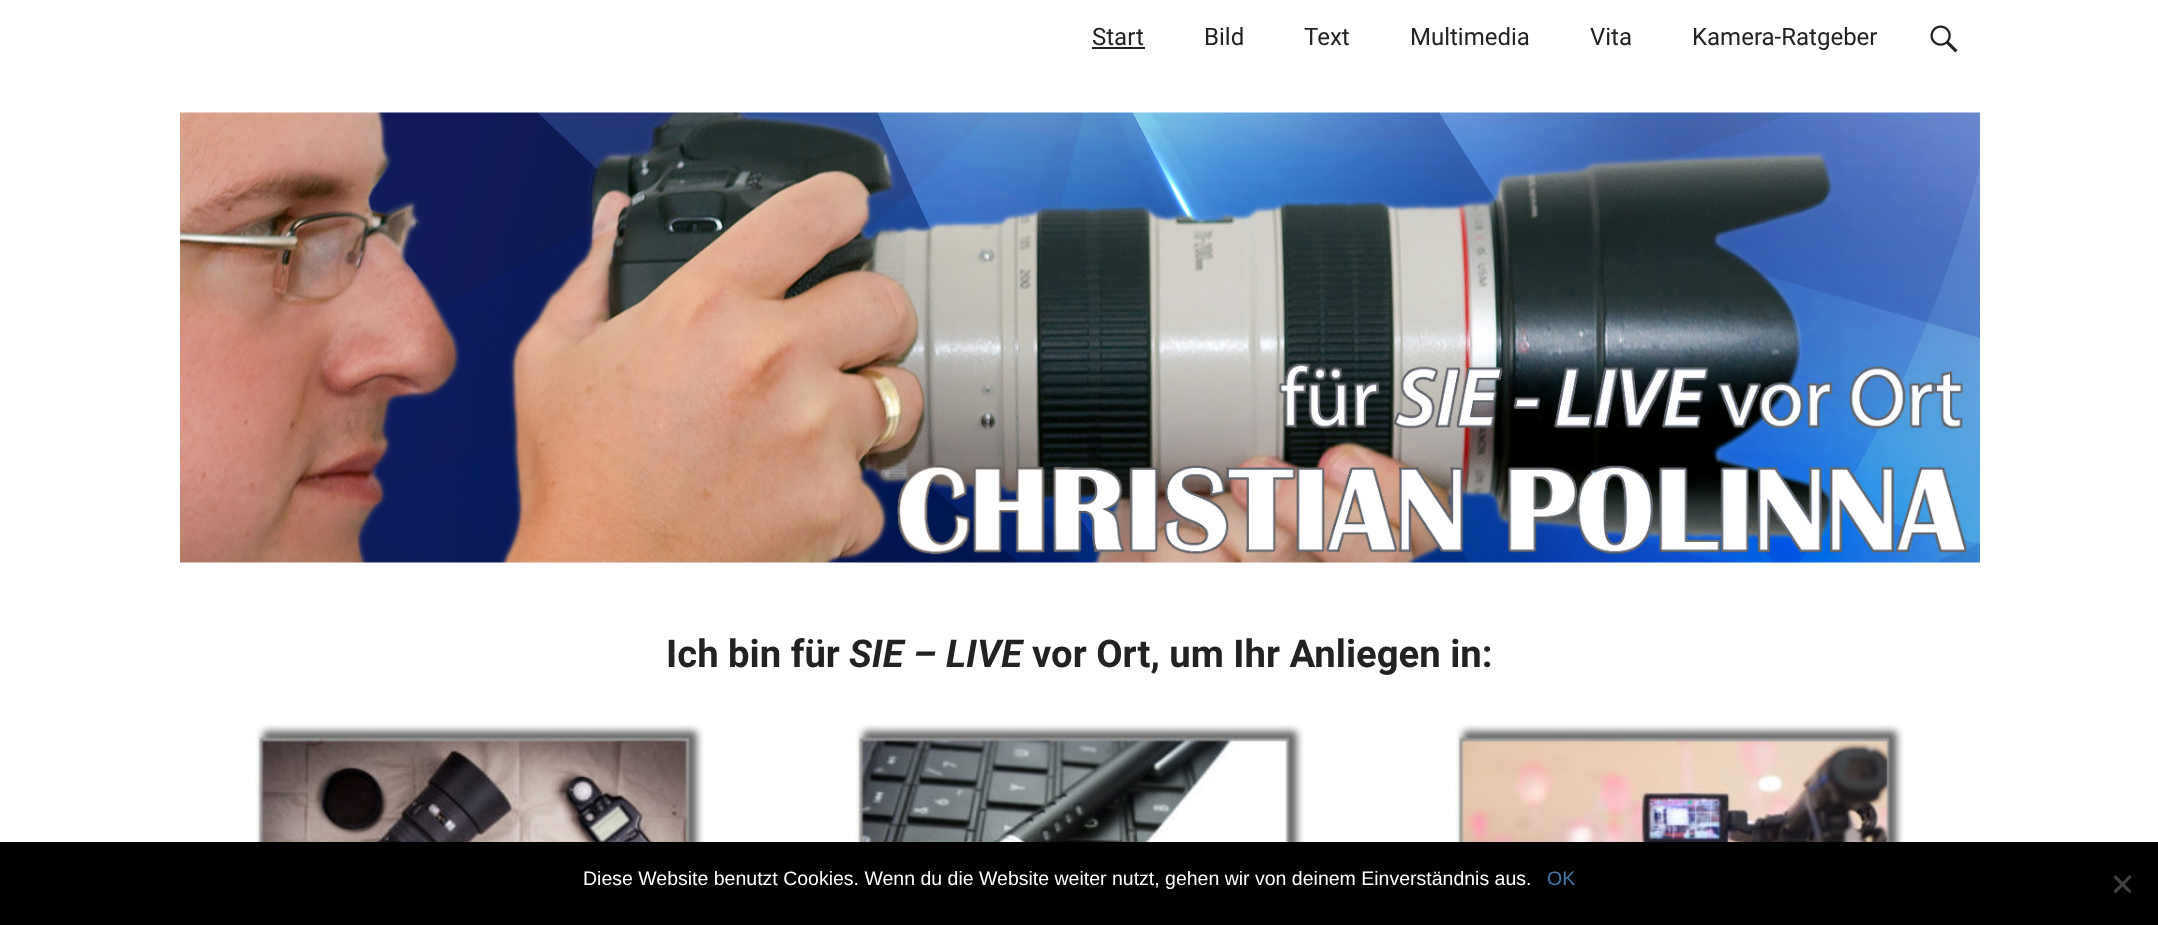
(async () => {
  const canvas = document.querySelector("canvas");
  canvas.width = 2158;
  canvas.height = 925;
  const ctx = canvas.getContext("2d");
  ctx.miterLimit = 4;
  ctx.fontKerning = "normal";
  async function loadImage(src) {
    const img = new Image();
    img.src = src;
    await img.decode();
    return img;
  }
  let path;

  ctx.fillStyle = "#ffffff";
  ctx.fillRect(0, 0, 2158, 925);
  ctx.fillStyle = "#222222";
  ctx.fillRect(1092, 47, 53, 2);
  ctx.drawImage(await loadImage("img/1.png"), 1930, 25, 28, 28);
  ctx.drawImage(await loadImage("img/2.png"), 180, 112, 1800, 451);
  ctx.drawImage(await loadImage("img/3.png"), 255, 724, 449, 118);
  ctx.drawImage(await loadImage("img/4.png"), 855, 724, 449, 118);
  ctx.drawImage(await loadImage("img/5.png"), 1455, 724, 449, 118);
  ctx.fillStyle = "#000000";
  ctx.fillRect(0, 842, 2158, 83);
  ctx.fillStyle = "#404040";
  path = new Path2D("M2129.5 875L2131.5 877.5L2115.5 893.5L2113.5 891Z");
  ctx.fill(path);
  path = new Path2D("M2113.5 877.5L2115.5 875L2131.5 891L2129.5 893.5Z");
  ctx.fill(path);
  ctx.font = "24px Roboto";
  ctx.fillStyle = "#222222";
  for (const [text, x, y] of [
    ["Start", 1092, 45],
    ["Bild", 1204, 45],
    ["Text", 1304, 45],
    ["Multimedia", 1410, 45],
    ["Vita", 1590, 45],
    ["Kamera-Ratgeber", 1692, 45],
  ]) {
    ctx.fillText(text, x, y);
  }
  ctx.font = "bold 38.25px Roboto";
  ctx.fillText("Ich bin für", 666, 667);
  ctx.font = "italic bold 38.25px Roboto";
  ctx.fillText("SIE – LIVE", 849, 667);
  ctx.font = "bold 38.25px Roboto";
  ctx.fillText("vor Ort, um Ihr Anliegen in:", 1032, 667);
  ctx.font = "19.5px Liberation Sans";
  ctx.fillStyle = "#ffffff";
  ctx.fillText("Diese Website benutzt Cookies. Wenn du die Website weiter nutzt, gehen wir von deinem Einverständnis aus.", 583, 885);
  ctx.fillStyle = "#4477aa";
  ctx.fillText("OK", 1547, 885);
})();
